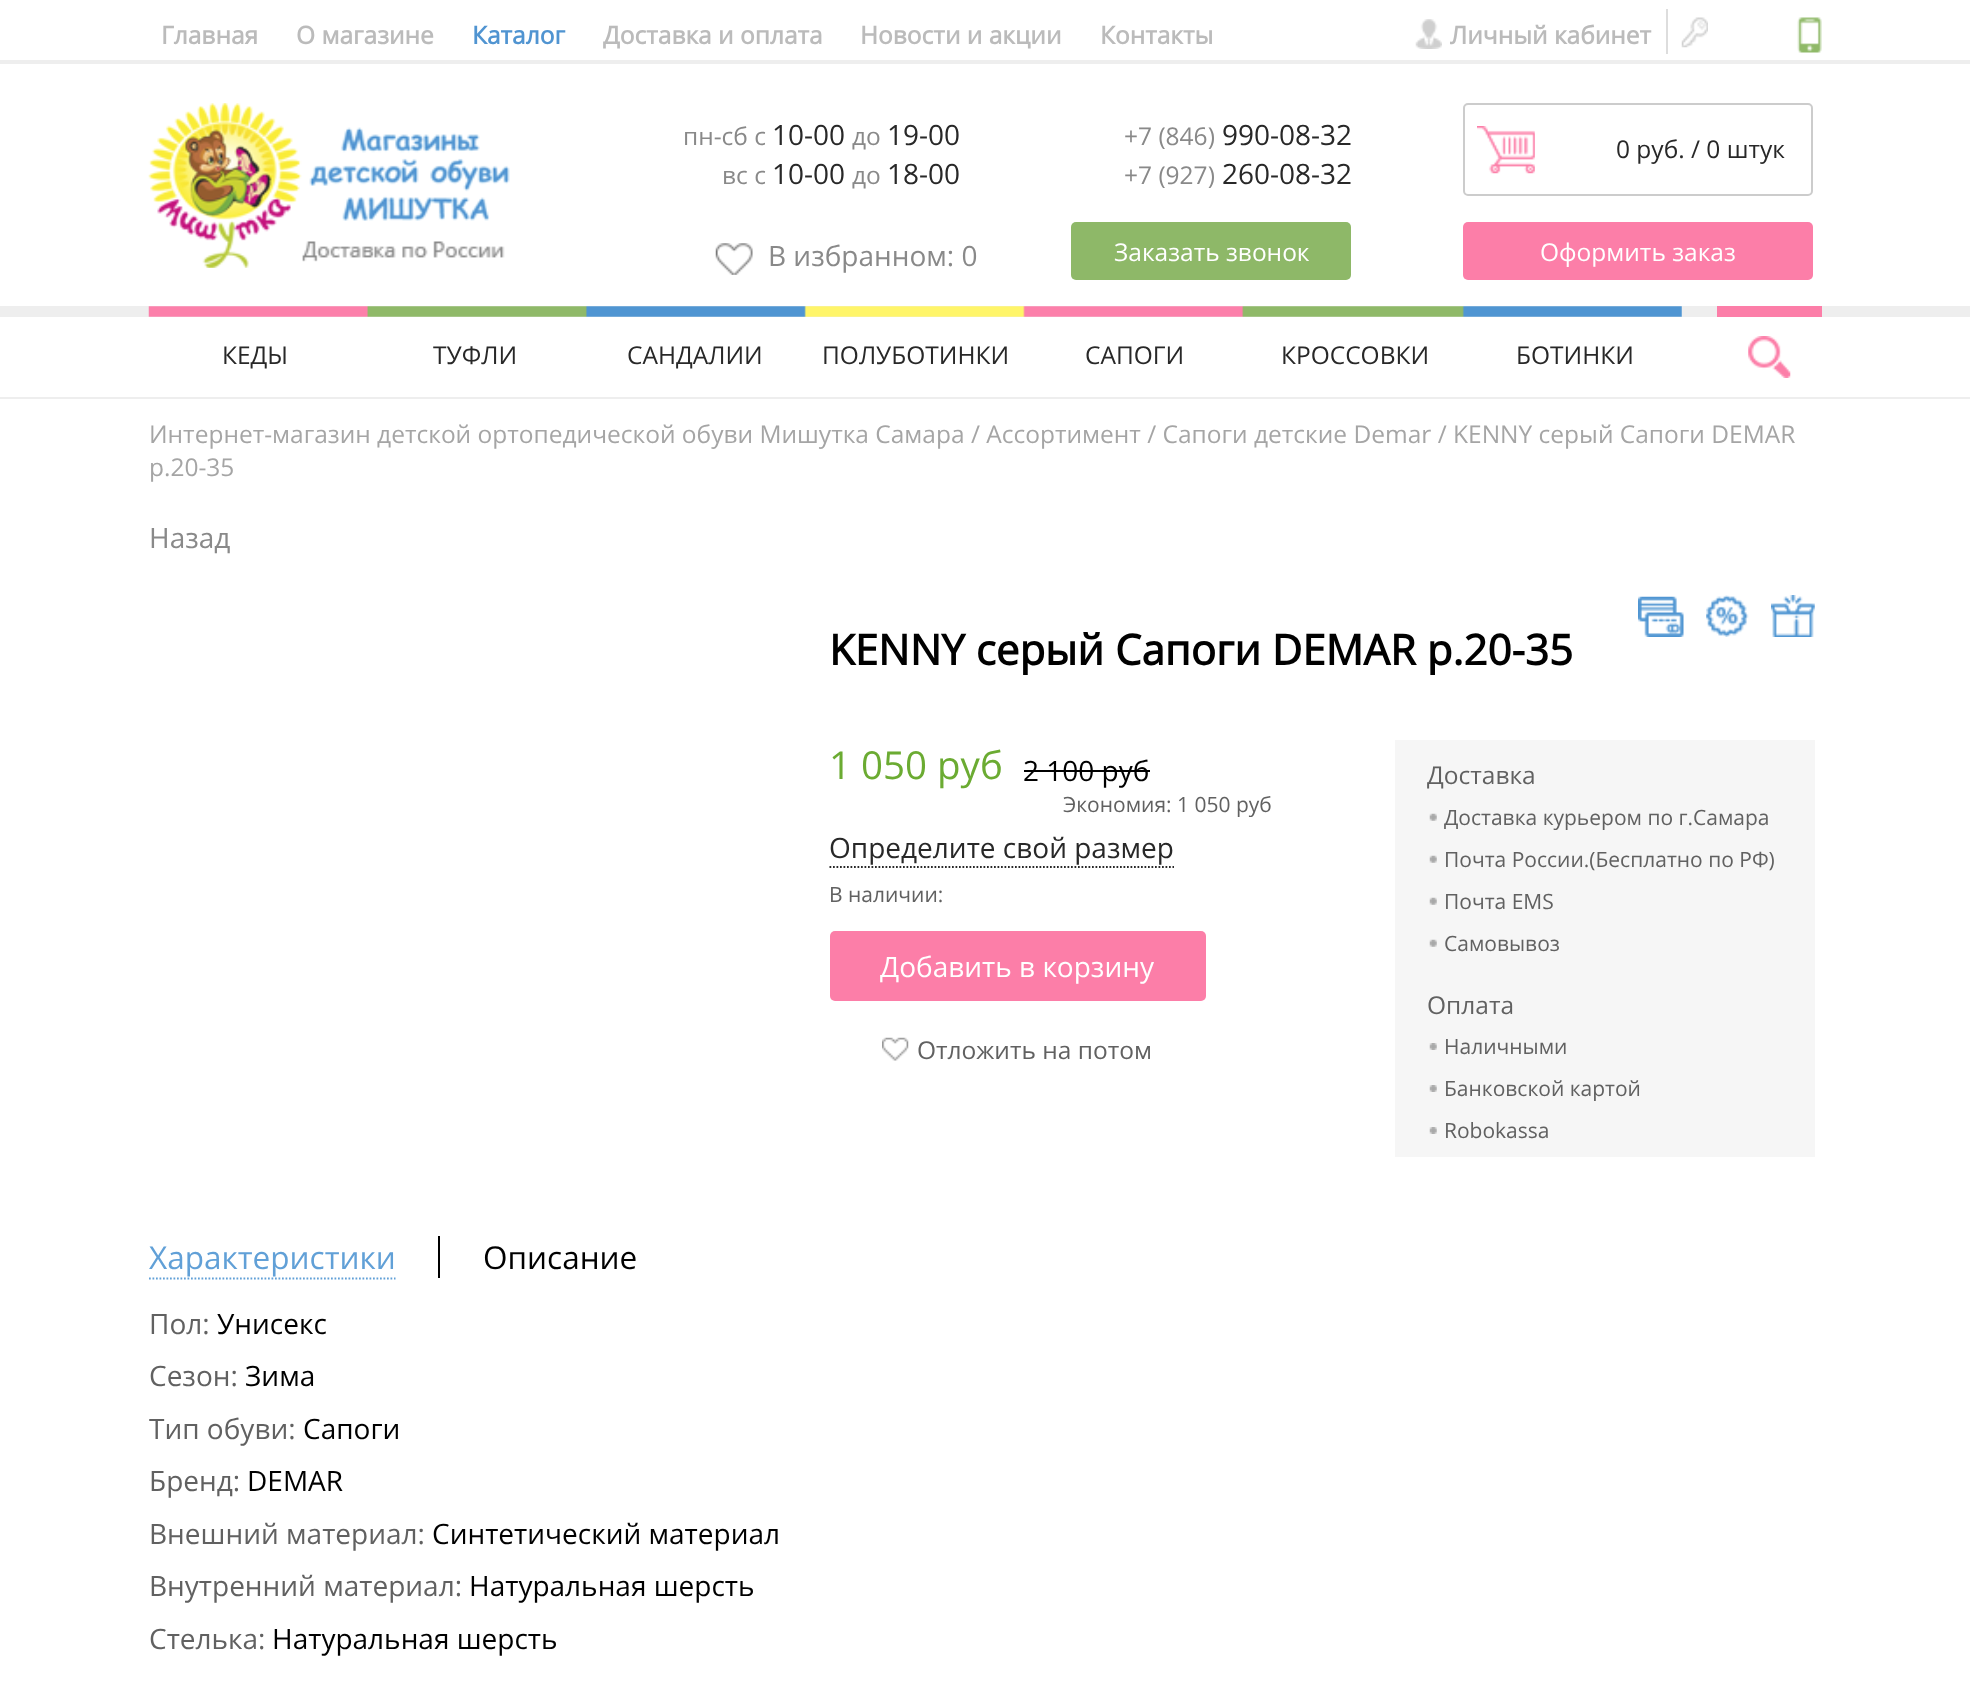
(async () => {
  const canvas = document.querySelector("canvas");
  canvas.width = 1970;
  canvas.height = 1694;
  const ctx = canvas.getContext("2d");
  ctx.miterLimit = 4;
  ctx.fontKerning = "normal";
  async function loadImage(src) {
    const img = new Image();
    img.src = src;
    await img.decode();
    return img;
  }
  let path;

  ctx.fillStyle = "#ffffff";
  ctx.fillRect(0, 0, 1970, 1694);
  ctx.fillStyle = "#eeeeee";
  ctx.fillRect(0, 397, 1970, 2);
  ctx.fillRect(0, 60, 1970, 4);
  ctx.drawImage(await loadImage("img/1.png"), 1415, 19, 27, 30);
  ctx.fillStyle = "#dddddd";
  ctx.fillRect(1666, 9, 2, 45);
  ctx.drawImage(await loadImage("img/2.png"), 1681, 17, 27, 31);
  ctx.drawImage(await loadImage("img/3.png"), 1797, 17, 25, 36);
  ctx.drawImage(await loadImage("img/4.png"), 148, 103, 362, 165);
  ctx.drawImage(await loadImage("img/5.png"), 715, 243, 38, 32);
  ctx.fillStyle = "#8eb868";
  ctx.beginPath();
  ctx.roundRect(1071, 222, 280, 58, 5);
  ctx.fill();
  ctx.drawImage(await loadImage("img/6.png"), 1477, 126, 58, 48);
  ctx.beginPath();
  ctx.roundRect(1464, 104, 348, 91, 4);
  ctx.strokeStyle = "#cccccc";
  ctx.lineWidth = 2;
  ctx.stroke();
  ctx.fillStyle = "#fc7ea8";
  ctx.beginPath();
  ctx.roundRect(1463, 222, 350, 58, 5);
  ctx.fill();
  ctx.fillStyle = "#eeeeee";
  ctx.fillRect(0, 306, 1970, 11);
  ctx.drawImage(await loadImage("img/7.png"), 148, 306, 1534, 11);
  ctx.fillStyle = "#fc7ea8";
  ctx.fillRect(1717, 306, 105, 11);
  ctx.drawImage(await loadImage("img/8.png"), 1748, 336, 43, 42);
  ctx.drawImage(await loadImage("img/9.png"), 1638, 596, 46, 41);
  ctx.drawImage(await loadImage("img/10.png"), 1706, 595, 43, 42);
  ctx.drawImage(await loadImage("img/11.png"), 1771, 595, 44, 42);
  ctx.fillStyle = "#000000";
  ctx.fillRect(1024, 770, 126, 2);
  path = new Path2D("M829.5 867H1174");
  ctx.strokeStyle = "#282828";
  ctx.lineWidth = 1.8;
  ctx.setLineDash([1.75, 1.75]);
  ctx.stroke(path);
  ctx.fillStyle = "#fc7ea8";
  ctx.beginPath();
  ctx.roundRect(830, 931, 376, 70, 5);
  ctx.fill();
  ctx.drawImage(await loadImage("img/12.png"), 882, 1037, 27, 24);
  ctx.fillStyle = "#f6f6f6";
  ctx.fillRect(1395, 740, 420, 417);
  ctx.drawImage(await loadImage("img/13.png"), 1429, 813, 8, 8);
  ctx.drawImage(await loadImage("img/13.png"), 1429, 855, 8, 8);
  ctx.drawImage(await loadImage("img/13.png"), 1429, 897, 8, 8);
  ctx.drawImage(await loadImage("img/13.png"), 1429, 939, 8, 8);
  ctx.drawImage(await loadImage("img/14.png"), 1429, 1043, 8, 7);
  ctx.drawImage(await loadImage("img/14.png"), 1429, 1085, 8, 7);
  ctx.drawImage(await loadImage("img/14.png"), 1429, 1127, 8, 7);
  ctx.fillStyle = "#000000";
  ctx.fillRect(438, 1236, 2, 42);
  path = new Path2D("M149 1278.5H395.5");
  ctx.strokeStyle = "#61a0d7";
  ctx.stroke(path);
  ctx.font = "bold 24.5px Open Sans";
  ctx.fillStyle = "#bbbbbb";
  ctx.fillText("Главная", 161, 44);
  ctx.fillText("О магазине", 296, 44);
  ctx.fillStyle = "#5094d1";
  ctx.fillText("Каталог", 472, 44);
  ctx.fillStyle = "#bbbbbb";
  for (const [text, x, y] of [
    ["Доставка и оплата", 603, 44],
    ["Новости и акции", 860, 44],
    ["Контакты", 1100, 44],
    ["Личный кабинет", 1450, 44],
  ]) {
    ctx.fillText(text, x, y);
  }
  ctx.font = "24.5px Open Sans";
  ctx.fillStyle = "#898989";
  ctx.fillText("пн-сб с", 683, 145);
  ctx.font = "28px Open Sans";
  ctx.fillStyle = "#282828";
  ctx.fillText("10-00", 772, 145);
  ctx.font = "24.5px Open Sans";
  ctx.fillStyle = "#898989";
  ctx.fillText("до", 852, 145);
  ctx.font = "28px Open Sans";
  ctx.fillStyle = "#282828";
  ctx.fillText("19-00", 887, 145);
  ctx.font = "24.5px Open Sans";
  ctx.fillStyle = "#898989";
  ctx.fillText("вс с", 722, 184);
  ctx.font = "28px Open Sans";
  ctx.fillStyle = "#282828";
  ctx.fillText("10-00", 772, 184);
  ctx.font = "24.5px Open Sans";
  ctx.fillStyle = "#898989";
  ctx.fillText("до", 852, 184);
  ctx.font = "28px Open Sans";
  ctx.fillStyle = "#282828";
  ctx.fillText("18-00", 887, 184);
  ctx.fillStyle = "#898989";
  ctx.fillText("В избранном: 0", 768, 266);
  ctx.font = "24.5px Open Sans";
  ctx.fillText("+7 (846)", 1124, 145);
  ctx.font = "28px Open Sans";
  ctx.fillStyle = "#282828";
  ctx.fillText("990-08-32", 1222, 145);
  ctx.font = "24.5px Open Sans";
  ctx.fillStyle = "#898989";
  ctx.fillText("+7 (927)", 1124, 184);
  ctx.font = "28px Open Sans";
  ctx.fillStyle = "#282828";
  ctx.fillText("260-08-32", 1222, 184);
  ctx.font = "24.5px Open Sans";
  ctx.fillStyle = "#ffffff";
  ctx.fillText("Заказать звонок", 1114, 261);
  ctx.fillStyle = "#282828";
  ctx.fillText("0 руб. / 0 штук", 1616, 158);
  ctx.fillStyle = "#ffffff";
  ctx.fillText("Оформить заказ", 1540, 261);
  ctx.fillStyle = "#282828";
  for (const [text, x, y] of [
    ["КЕДЫ", 222, 364],
    ["ТУФЛИ", 433, 364],
    ["САНДАЛИИ", 627, 364],
    ["ПОЛУБОТИНКИ", 822, 364],
    ["САПОГИ", 1085, 364],
    ["КРОССОВКИ", 1281, 364],
    ["БОТИНКИ", 1516, 364],
  ]) {
    ctx.fillText(text, x, y);
  }
  ctx.fillStyle = "#a5a5a5";
  ctx.fillText("Интернет-магазин детской ортопедической обуви Мишутка Самара / Aссортимент / Сапоги детские Demar / KENNY серый Сапоги DEMAR", 149, 443);
  ctx.fillText("р.20-35", 149, 476);
  ctx.font = "28px Open Sans";
  ctx.fillStyle = "#898989";
  ctx.fillText("Назад", 149, 548);
  ctx.font = "bold 42px Open Sans";
  ctx.fillStyle = "#000000";
  ctx.fillText("KENNY серый Сапоги DEMAR р.20-35", 829, 665);
  ctx.font = "38.5px Open Sans";
  ctx.fillStyle = "#6bab32";
  ctx.fillText("1 050 руб", 829, 779);
  ctx.font = "28px Open Sans";
  ctx.fillStyle = "#000000";
  ctx.fillText("2 100 руб", 1023, 781);
  ctx.font = "21px Open Sans";
  ctx.fillStyle = "#616161";
  ctx.fillText("Экономия: 1 050 руб", 1063, 812);
  ctx.font = "28px Open Sans";
  ctx.fillStyle = "#282828";
  ctx.fillText("Определите свой размер", 829, 858);
  ctx.font = "21px Open Sans";
  ctx.fillStyle = "#616161";
  ctx.fillText("В наличии:", 829, 902);
  ctx.font = "28px Open Sans";
  ctx.fillStyle = "#ffffff";
  ctx.fillText("Добавить в корзину", 880, 977);
  ctx.font = "24.5px Open Sans";
  ctx.fillStyle = "#616161";
  ctx.fillText("Отложить на потом", 917, 1059);
  ctx.fillText("Доставка", 1427, 784);
  ctx.font = "21px Open Sans";
  for (const [text, x, y] of [
    ["Доставка курьером по г.Самара", 1444, 825],
    ["Почта России.(Бесплатно по РФ)", 1444, 867],
    ["Почта EMS", 1444, 909],
    ["Самовывоз", 1444, 951],
  ]) {
    ctx.fillText(text, x, y);
  }
  ctx.font = "24.5px Open Sans";
  ctx.fillText("Оплата", 1427, 1014);
  ctx.font = "21px Open Sans";
  for (const [text, x, y] of [
    ["Наличными", 1444, 1054],
    ["Банковской картой", 1444, 1096],
    ["Robokassa", 1444, 1138],
  ]) {
    ctx.fillText(text, x, y);
  }
  ctx.font = "31.5px Open Sans";
  ctx.fillStyle = "#61a0d7";
  ctx.fillText("Характеристики", 149, 1269);
  ctx.fillStyle = "#000000";
  ctx.fillText("Описание", 483, 1269);
  ctx.font = "28px Open Sans";
  ctx.fillStyle = "#616161";
  ctx.fillText("Пол:", 149, 1334);
  ctx.fillStyle = "#000000";
  ctx.fillText("Унисекс", 217, 1334);
  ctx.fillStyle = "#616161";
  ctx.fillText("Сезон:", 149, 1386);
  ctx.fillStyle = "#000000";
  ctx.fillText("Зима", 245, 1386);
  ctx.fillStyle = "#616161";
  ctx.fillText("Тип обуви:", 149, 1439);
  ctx.fillStyle = "#000000";
  ctx.fillText("Сапоги", 303, 1439);
  ctx.fillStyle = "#616161";
  ctx.fillText("Бренд:", 149, 1491);
  ctx.fillStyle = "#000000";
  ctx.fillText("DEMAR", 247, 1491);
  ctx.fillStyle = "#616161";
  ctx.fillText("Внешний материал:", 149, 1544);
  ctx.fillStyle = "#000000";
  ctx.fillText("Синтетический материал", 432, 1544);
  ctx.fillStyle = "#616161";
  ctx.fillText("Внутренний материал:", 149, 1596);
  ctx.fillStyle = "#000000";
  ctx.fillText("Натуральная шерсть", 469, 1596);
  ctx.fillStyle = "#616161";
  ctx.fillText("Стелька:", 149, 1649);
  ctx.fillStyle = "#000000";
  ctx.fillText("Натуральная шерсть", 272, 1649);
})();
